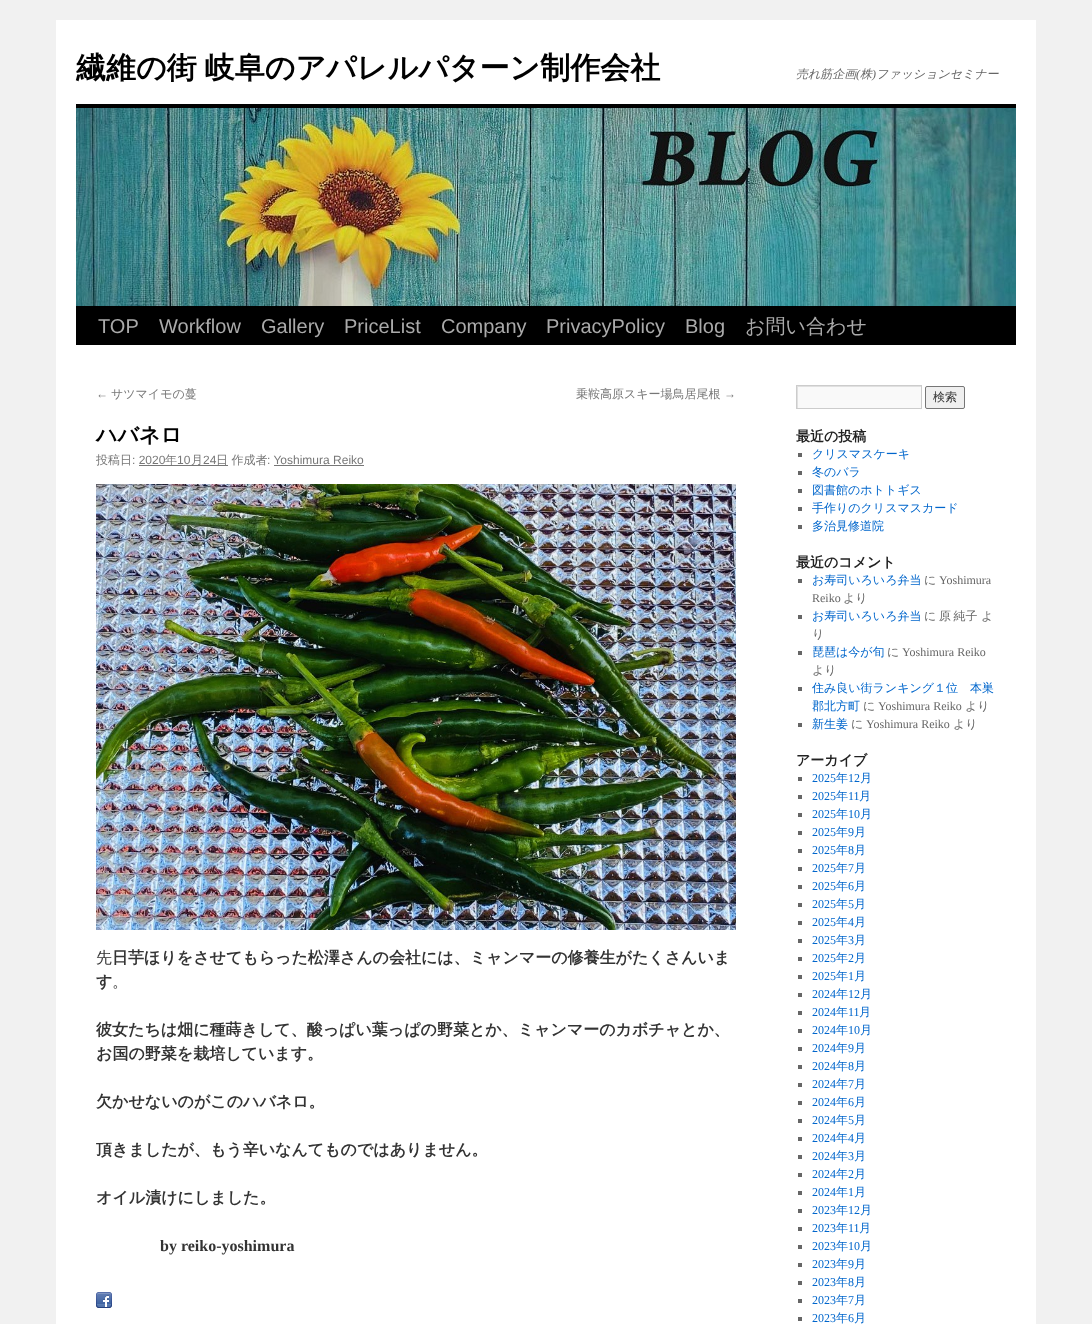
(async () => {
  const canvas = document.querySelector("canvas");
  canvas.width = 1092;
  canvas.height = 1324;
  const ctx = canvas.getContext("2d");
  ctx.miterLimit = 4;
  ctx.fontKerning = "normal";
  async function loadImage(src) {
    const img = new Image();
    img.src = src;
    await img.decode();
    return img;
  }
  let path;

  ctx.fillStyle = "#f1f1f1";
  ctx.fillRect(0, 0, 1092, 1324);
  for (const [x, y, w, h, color] of [
    [56, 20, 980, 1304, "#ffffff"],
    [76, 104, 940, 4, "#000000"],
    [76, 306, 940, 39, "#000000"],
  ]) {
    ctx.fillStyle = color;
    ctx.fillRect(x, y, w, h);
  }
  ctx.drawImage(await loadImage("img/1.png"), 76, 108, 940, 198);
  ctx.fillStyle = "#777777";
  ctx.fillRect(139, 465, 89, 1);
  ctx.fillRect(274, 465, 90, 1);
  ctx.drawImage(await loadImage("img/2.png"), 96, 484, 640, 446);
  ctx.drawImage(await loadImage("img/3.png"), 96, 1292, 16, 16);
  ctx.fillStyle = "#f9f9f9";
  ctx.fillRect(798, 387, 123, 21);
  ctx.save();
  ctx.beginPath();
  ctx.rect(797, 386, 124, 22);
  ctx.clip();
  ctx.fillStyle = "#e0e0e0";
  path = new Path2D("M698 287H1020V507H698ZM798 387H922V409H798Z");
  ctx.fill(path, "evenodd");
  ctx.restore();
  ctx.strokeStyle = "#cccccc";
  ctx.strokeRect(796.5, 385.5, 125, 23);
  ctx.fillStyle = "#efefef";
  ctx.beginPath();
  ctx.roundRect(925.5, 386.5, 39, 22, 1.5);
  ctx.fill();
  ctx.strokeStyle = "#767676";
  ctx.stroke();
  for (const [x, y, w, h, color] of [
    [798, 453, 4, 4, "#666666"],
    [798, 471, 4, 4, "#666666"],
    [798, 489, 4, 4, "#666666"],
    [798, 507, 4, 4, "#666666"],
    [798, 525, 4, 4, "#666666"],
    [798, 579, 4, 4, "#666666"],
    [798, 615, 4, 4, "#666666"],
    [798, 651, 4, 4, "#666666"],
    [798, 687, 4, 4, "#666666"],
    [798, 723, 4, 4, "#666666"],
    [798, 777, 4, 4, "#666666"],
    [798, 795, 4, 4, "#666666"],
    [798, 813, 4, 4, "#666666"],
    [798, 831, 4, 4, "#666666"],
    [798, 849, 4, 4, "#666666"],
    [798, 867, 4, 4, "#666666"],
    [798, 885, 4, 4, "#666666"],
    [798, 903, 4, 4, "#666666"],
    [798, 921, 4, 4, "#666666"],
    [798, 939, 4, 4, "#666666"],
    [798, 957, 4, 4, "#666666"],
    [798, 975, 4, 4, "#666666"],
    [798, 993, 4, 4, "#666666"],
    [798, 1011, 4, 4, "#666666"],
    [798, 1029, 4, 4, "#666666"],
    [798, 1047, 4, 4, "#666666"],
    [798, 1065, 4, 4, "#666666"],
    [798, 1083, 4, 4, "#666666"],
    [798, 1101, 4, 4, "#666666"],
    [798, 1119, 4, 4, "#666666"],
    [798, 1137, 4, 4, "#666666"],
    [798, 1155, 4, 4, "#666666"],
    [798, 1173, 4, 4, "#666666"],
    [798, 1191, 4, 4, "#666666"],
    [798, 1209, 4, 4, "#666666"],
    [798, 1227, 4, 4, "#666666"],
    [798, 1245, 4, 4, "#666666"],
    [798, 1263, 4, 4, "#666666"],
    [798, 1281, 4, 4, "#666666"],
    [798, 1299, 4, 4, "#666666"],
    [798, 1317, 4, 4, "#666666"],
  ]) {
    ctx.fillStyle = color;
    ctx.fillRect(x, y, w, h);
  }
  ctx.wordSpacing = "-1px";
  ctx.font = "bold 30px WenQuanYi Zen Hei";
  ctx.fillStyle = "#000000";
  ctx.fillText("繊維の街 岐阜のアパレルパターン制作会社", 76, 78);
  ctx.wordSpacing = "0px";
  ctx.font = "italic 500 12px WenQuanYi Zen Hei";
  ctx.fillStyle = "#666666";
  ctx.fillText("売れ筋企画", 796, 78);
  ctx.font = "italic 12px Liberation Serif";
  ctx.fillText("(", 856, 78);
  ctx.font = "italic 500 12px WenQuanYi Zen Hei";
  ctx.fillText("株", 860, 78);
  ctx.font = "italic 12px Liberation Serif";
  ctx.fillText(")", 872, 78);
  ctx.font = "italic 500 12px WenQuanYi Zen Hei";
  ctx.fillText("ファッションセミナー", 876, 78);
  ctx.font = "20px Liberation Sans";
  ctx.fillStyle = "#aaaaaa";
  for (const [text, x, y] of [
    ["TOP", 98, 333],
    ["Workflow", 159, 333],
    ["Gallery", 261, 333],
    ["PriceList", 344, 333],
    ["Company", 441, 333],
    ["PrivacyPolicy", 546, 333],
    ["Blog", 685, 333],
  ]) {
    ctx.fillText(text, x, y);
  }
  ctx.font = "500 20px WenQuanYi Zen Hei";
  ctx.fillText("お問い合わせ", 745, 333);
  ctx.font = "12px Liberation Sans";
  ctx.fillStyle = "#777777";
  ctx.fillText("←", 96, 398);
  ctx.font = "500 12px WenQuanYi Zen Hei";
  ctx.fillText("サツマイモの蔓", 111, 398);
  ctx.fillText("乗鞍高原スキー場鳥居尾根", 576, 398);
  ctx.font = "12px Liberation Sans";
  ctx.fillText("→", 724, 398);
  ctx.font = "bold 21px WenQuanYi Zen Hei";
  ctx.fillStyle = "#000000";
  ctx.fillText("ハバネロ", 96, 442);
  ctx.font = "500 12px WenQuanYi Zen Hei";
  ctx.fillStyle = "#777777";
  ctx.fillText("投稿日", 96, 464);
  ctx.font = "12px Liberation Sans";
  ctx.fillText(": 2020", 132, 464);
  ctx.font = "500 12px WenQuanYi Zen Hei";
  ctx.fillText("年", 165, 464);
  ctx.font = "12px Liberation Sans";
  ctx.fillText("10", 177, 464);
  ctx.font = "500 12px WenQuanYi Zen Hei";
  ctx.fillText("月", 191, 464);
  ctx.font = "12px Liberation Sans";
  ctx.fillText("24", 203, 464);
  ctx.font = "500 12px WenQuanYi Zen Hei";
  ctx.fillText("日 作成者", 216, 464);
  ctx.font = "12px Liberation Sans";
  ctx.fillText(": Yoshimura Reiko", 267, 464);
  ctx.font = "500 16px WenQuanYi Zen Hei";
  ctx.fillStyle = "#333333";
  ctx.fillText("先", 96, 963);
  ctx.font = "bold 16px WenQuanYi Zen Hei";
  ctx.fillText("日芋ほりをさせてもらった松澤さんの会社には、ミャンマーの修養生がたくさんいま", 112, 963);
  ctx.fillText("す", 96, 987);
  ctx.font = "500 16px WenQuanYi Zen Hei";
  ctx.fillText("。", 112, 987);
  ctx.font = "bold 16px WenQuanYi Zen Hei";
  for (const [text, x, y] of [
    ["彼女たちは畑に種蒔きして、酸っぱい葉っぱの野菜とか、ミャンマーのカボチャとか、", 96, 1035],
    ["お国の野菜を栽培しています。", 96, 1059],
    ["欠かせないのがこのハバネロ。", 96, 1107],
    ["頂きましたが、もう辛いなんてものではありません。", 96, 1155],
    ["オイル漬けにしました。", 96, 1203],
  ]) {
    ctx.fillText(text, x, y);
  }
  ctx.font = "bold 16px Liberation Serif";
  ctx.fillText("by reiko-yoshimura", 160, 1251);
  ctx.font = "500 12px WenQuanYi Zen Hei";
  ctx.fillText("検索", 933, 401);
  ctx.font = "bold 14px WenQuanYi Zen Hei";
  ctx.fillStyle = "#222222";
  ctx.fillText("最近の投稿", 796, 441);
  ctx.font = "500 12px WenQuanYi Zen Hei";
  ctx.fillStyle = "#0066cc";
  for (const [text, x, y] of [
    ["クリスマスケーキ", 812, 458],
    ["冬のバラ", 812, 476],
    ["図書館のホトトギス", 812, 494],
    ["手作りのクリスマスカード", 812, 512],
    ["多治見修道院", 812, 530],
  ]) {
    ctx.fillText(text, x, y);
  }
  ctx.font = "bold 14px WenQuanYi Zen Hei";
  ctx.fillStyle = "#222222";
  ctx.fillText("最近のコメント", 796, 567);
  ctx.font = "500 12px WenQuanYi Zen Hei";
  ctx.fillStyle = "#0066cc";
  ctx.fillText("お寿司いろいろ弁当", 812, 584);
  ctx.fillStyle = "#666666";
  ctx.fillText("に", 924, 584);
  ctx.font = "12px Liberation Serif";
  ctx.fillText("Yoshimura", 939, 584);
  ctx.fillText("Reiko", 812, 602);
  ctx.font = "500 12px WenQuanYi Zen Hei";
  ctx.fillText("より", 843, 602);
  ctx.fillStyle = "#0066cc";
  ctx.fillText("お寿司いろいろ弁当", 812, 620);
  ctx.fillStyle = "#666666";
  ctx.fillText("に", 924, 620);
  ctx.wordSpacing = "-1px";
  ctx.fillText("原 純子", 939, 620);
  ctx.wordSpacing = "0px";
  ctx.fillText("よ", 981, 620);
  ctx.fillText("り", 812, 638);
  ctx.fillStyle = "#0066cc";
  ctx.fillText("琵琶は今が旬", 812, 656);
  ctx.fillStyle = "#666666";
  ctx.fillText("に", 887, 656);
  ctx.font = "12px Liberation Serif";
  ctx.fillText("Yoshimura Reiko", 902, 656);
  ctx.font = "500 12px WenQuanYi Zen Hei";
  ctx.fillText("より", 812, 674);
  ctx.fillStyle = "#0066cc";
  ctx.fillText("住み良い街ランキング１位　本巣", 812, 692);
  ctx.fillText("郡北方町", 812, 710);
  ctx.fillStyle = "#666666";
  ctx.fillText("に", 863, 710);
  ctx.font = "12px Liberation Serif";
  ctx.fillText("Yoshimura Reiko", 878, 710);
  ctx.font = "500 12px WenQuanYi Zen Hei";
  ctx.fillText("より", 965, 710);
  ctx.fillStyle = "#0066cc";
  ctx.fillText("新生姜", 812, 728);
  ctx.fillStyle = "#666666";
  ctx.fillText("に", 851, 728);
  ctx.font = "12px Liberation Serif";
  ctx.fillText("Yoshimura Reiko", 866, 728);
  ctx.font = "500 12px WenQuanYi Zen Hei";
  ctx.fillText("より", 953, 728);
  ctx.font = "bold 14px WenQuanYi Zen Hei";
  ctx.fillStyle = "#222222";
  ctx.fillText("アーカイブ", 796, 765);
  ctx.font = "12px Liberation Serif";
  ctx.fillStyle = "#0066cc";
  ctx.fillText("2025", 812, 782);
  ctx.font = "500 12px WenQuanYi Zen Hei";
  ctx.fillText("年", 836, 782);
  ctx.font = "12px Liberation Serif";
  ctx.fillText("12", 848, 782);
  ctx.font = "500 12px WenQuanYi Zen Hei";
  ctx.fillText("月", 860, 782);
  ctx.font = "12px Liberation Serif";
  ctx.fillText("2025", 812, 800);
  ctx.font = "500 12px WenQuanYi Zen Hei";
  ctx.fillText("年", 836, 800);
  ctx.font = "12px Liberation Serif";
  ctx.fillText("11", 848, 800);
  ctx.font = "500 12px WenQuanYi Zen Hei";
  ctx.fillText("月", 859, 800);
  ctx.font = "12px Liberation Serif";
  ctx.fillText("2025", 812, 818);
  ctx.font = "500 12px WenQuanYi Zen Hei";
  ctx.fillText("年", 836, 818);
  ctx.font = "12px Liberation Serif";
  ctx.fillText("10", 848, 818);
  ctx.font = "500 12px WenQuanYi Zen Hei";
  ctx.fillText("月", 860, 818);
  ctx.font = "12px Liberation Serif";
  ctx.fillText("2025", 812, 836);
  ctx.font = "500 12px WenQuanYi Zen Hei";
  ctx.fillText("年", 836, 836);
  ctx.font = "12px Liberation Serif";
  ctx.fillText("9", 848, 836);
  ctx.font = "500 12px WenQuanYi Zen Hei";
  ctx.fillText("月", 854, 836);
  ctx.font = "12px Liberation Serif";
  ctx.fillText("2025", 812, 854);
  ctx.font = "500 12px WenQuanYi Zen Hei";
  ctx.fillText("年", 836, 854);
  ctx.font = "12px Liberation Serif";
  ctx.fillText("8", 848, 854);
  ctx.font = "500 12px WenQuanYi Zen Hei";
  ctx.fillText("月", 854, 854);
  ctx.font = "12px Liberation Serif";
  ctx.fillText("2025", 812, 872);
  ctx.font = "500 12px WenQuanYi Zen Hei";
  ctx.fillText("年", 836, 872);
  ctx.font = "12px Liberation Serif";
  ctx.fillText("7", 848, 872);
  ctx.font = "500 12px WenQuanYi Zen Hei";
  ctx.fillText("月", 854, 872);
  ctx.font = "12px Liberation Serif";
  ctx.fillText("2025", 812, 890);
  ctx.font = "500 12px WenQuanYi Zen Hei";
  ctx.fillText("年", 836, 890);
  ctx.font = "12px Liberation Serif";
  ctx.fillText("6", 848, 890);
  ctx.font = "500 12px WenQuanYi Zen Hei";
  ctx.fillText("月", 854, 890);
  ctx.font = "12px Liberation Serif";
  ctx.fillText("2025", 812, 908);
  ctx.font = "500 12px WenQuanYi Zen Hei";
  ctx.fillText("年", 836, 908);
  ctx.font = "12px Liberation Serif";
  ctx.fillText("5", 848, 908);
  ctx.font = "500 12px WenQuanYi Zen Hei";
  ctx.fillText("月", 854, 908);
  ctx.font = "12px Liberation Serif";
  ctx.fillText("2025", 812, 926);
  ctx.font = "500 12px WenQuanYi Zen Hei";
  ctx.fillText("年", 836, 926);
  ctx.font = "12px Liberation Serif";
  ctx.fillText("4", 848, 926);
  ctx.font = "500 12px WenQuanYi Zen Hei";
  ctx.fillText("月", 854, 926);
  ctx.font = "12px Liberation Serif";
  ctx.fillText("2025", 812, 944);
  ctx.font = "500 12px WenQuanYi Zen Hei";
  ctx.fillText("年", 836, 944);
  ctx.font = "12px Liberation Serif";
  ctx.fillText("3", 848, 944);
  ctx.font = "500 12px WenQuanYi Zen Hei";
  ctx.fillText("月", 854, 944);
  ctx.font = "12px Liberation Serif";
  ctx.fillText("2025", 812, 962);
  ctx.font = "500 12px WenQuanYi Zen Hei";
  ctx.fillText("年", 836, 962);
  ctx.font = "12px Liberation Serif";
  ctx.fillText("2", 848, 962);
  ctx.font = "500 12px WenQuanYi Zen Hei";
  ctx.fillText("月", 854, 962);
  ctx.font = "12px Liberation Serif";
  ctx.fillText("2025", 812, 980);
  ctx.font = "500 12px WenQuanYi Zen Hei";
  ctx.fillText("年", 836, 980);
  ctx.font = "12px Liberation Serif";
  ctx.fillText("1", 848, 980);
  ctx.font = "500 12px WenQuanYi Zen Hei";
  ctx.fillText("月", 854, 980);
  ctx.font = "12px Liberation Serif";
  ctx.fillText("2024", 812, 998);
  ctx.font = "500 12px WenQuanYi Zen Hei";
  ctx.fillText("年", 836, 998);
  ctx.font = "12px Liberation Serif";
  ctx.fillText("12", 848, 998);
  ctx.font = "500 12px WenQuanYi Zen Hei";
  ctx.fillText("月", 860, 998);
  ctx.font = "12px Liberation Serif";
  ctx.fillText("2024", 812, 1016);
  ctx.font = "500 12px WenQuanYi Zen Hei";
  ctx.fillText("年", 836, 1016);
  ctx.font = "12px Liberation Serif";
  ctx.fillText("11", 848, 1016);
  ctx.font = "500 12px WenQuanYi Zen Hei";
  ctx.fillText("月", 859, 1016);
  ctx.font = "12px Liberation Serif";
  ctx.fillText("2024", 812, 1034);
  ctx.font = "500 12px WenQuanYi Zen Hei";
  ctx.fillText("年", 836, 1034);
  ctx.font = "12px Liberation Serif";
  ctx.fillText("10", 848, 1034);
  ctx.font = "500 12px WenQuanYi Zen Hei";
  ctx.fillText("月", 860, 1034);
  ctx.font = "12px Liberation Serif";
  ctx.fillText("2024", 812, 1052);
  ctx.font = "500 12px WenQuanYi Zen Hei";
  ctx.fillText("年", 836, 1052);
  ctx.font = "12px Liberation Serif";
  ctx.fillText("9", 848, 1052);
  ctx.font = "500 12px WenQuanYi Zen Hei";
  ctx.fillText("月", 854, 1052);
  ctx.font = "12px Liberation Serif";
  ctx.fillText("2024", 812, 1070);
  ctx.font = "500 12px WenQuanYi Zen Hei";
  ctx.fillText("年", 836, 1070);
  ctx.font = "12px Liberation Serif";
  ctx.fillText("8", 848, 1070);
  ctx.font = "500 12px WenQuanYi Zen Hei";
  ctx.fillText("月", 854, 1070);
  ctx.font = "12px Liberation Serif";
  ctx.fillText("2024", 812, 1088);
  ctx.font = "500 12px WenQuanYi Zen Hei";
  ctx.fillText("年", 836, 1088);
  ctx.font = "12px Liberation Serif";
  ctx.fillText("7", 848, 1088);
  ctx.font = "500 12px WenQuanYi Zen Hei";
  ctx.fillText("月", 854, 1088);
  ctx.font = "12px Liberation Serif";
  ctx.fillText("2024", 812, 1106);
  ctx.font = "500 12px WenQuanYi Zen Hei";
  ctx.fillText("年", 836, 1106);
  ctx.font = "12px Liberation Serif";
  ctx.fillText("6", 848, 1106);
  ctx.font = "500 12px WenQuanYi Zen Hei";
  ctx.fillText("月", 854, 1106);
  ctx.font = "12px Liberation Serif";
  ctx.fillText("2024", 812, 1124);
  ctx.font = "500 12px WenQuanYi Zen Hei";
  ctx.fillText("年", 836, 1124);
  ctx.font = "12px Liberation Serif";
  ctx.fillText("5", 848, 1124);
  ctx.font = "500 12px WenQuanYi Zen Hei";
  ctx.fillText("月", 854, 1124);
  ctx.font = "12px Liberation Serif";
  ctx.fillText("2024", 812, 1142);
  ctx.font = "500 12px WenQuanYi Zen Hei";
  ctx.fillText("年", 836, 1142);
  ctx.font = "12px Liberation Serif";
  ctx.fillText("4", 848, 1142);
  ctx.font = "500 12px WenQuanYi Zen Hei";
  ctx.fillText("月", 854, 1142);
  ctx.font = "12px Liberation Serif";
  ctx.fillText("2024", 812, 1160);
  ctx.font = "500 12px WenQuanYi Zen Hei";
  ctx.fillText("年", 836, 1160);
  ctx.font = "12px Liberation Serif";
  ctx.fillText("3", 848, 1160);
  ctx.font = "500 12px WenQuanYi Zen Hei";
  ctx.fillText("月", 854, 1160);
  ctx.font = "12px Liberation Serif";
  ctx.fillText("2024", 812, 1178);
  ctx.font = "500 12px WenQuanYi Zen Hei";
  ctx.fillText("年", 836, 1178);
  ctx.font = "12px Liberation Serif";
  ctx.fillText("2", 848, 1178);
  ctx.font = "500 12px WenQuanYi Zen Hei";
  ctx.fillText("月", 854, 1178);
  ctx.font = "12px Liberation Serif";
  ctx.fillText("2024", 812, 1196);
  ctx.font = "500 12px WenQuanYi Zen Hei";
  ctx.fillText("年", 836, 1196);
  ctx.font = "12px Liberation Serif";
  ctx.fillText("1", 848, 1196);
  ctx.font = "500 12px WenQuanYi Zen Hei";
  ctx.fillText("月", 854, 1196);
  ctx.font = "12px Liberation Serif";
  ctx.fillText("2023", 812, 1214);
  ctx.font = "500 12px WenQuanYi Zen Hei";
  ctx.fillText("年", 836, 1214);
  ctx.font = "12px Liberation Serif";
  ctx.fillText("12", 848, 1214);
  ctx.font = "500 12px WenQuanYi Zen Hei";
  ctx.fillText("月", 860, 1214);
  ctx.font = "12px Liberation Serif";
  ctx.fillText("2023", 812, 1232);
  ctx.font = "500 12px WenQuanYi Zen Hei";
  ctx.fillText("年", 836, 1232);
  ctx.font = "12px Liberation Serif";
  ctx.fillText("11", 848, 1232);
  ctx.font = "500 12px WenQuanYi Zen Hei";
  ctx.fillText("月", 859, 1232);
  ctx.font = "12px Liberation Serif";
  ctx.fillText("2023", 812, 1250);
  ctx.font = "500 12px WenQuanYi Zen Hei";
  ctx.fillText("年", 836, 1250);
  ctx.font = "12px Liberation Serif";
  ctx.fillText("10", 848, 1250);
  ctx.font = "500 12px WenQuanYi Zen Hei";
  ctx.fillText("月", 860, 1250);
  ctx.font = "12px Liberation Serif";
  ctx.fillText("2023", 812, 1268);
  ctx.font = "500 12px WenQuanYi Zen Hei";
  ctx.fillText("年", 836, 1268);
  ctx.font = "12px Liberation Serif";
  ctx.fillText("9", 848, 1268);
  ctx.font = "500 12px WenQuanYi Zen Hei";
  ctx.fillText("月", 854, 1268);
  ctx.font = "12px Liberation Serif";
  ctx.fillText("2023", 812, 1286);
  ctx.font = "500 12px WenQuanYi Zen Hei";
  ctx.fillText("年", 836, 1286);
  ctx.font = "12px Liberation Serif";
  ctx.fillText("8", 848, 1286);
  ctx.font = "500 12px WenQuanYi Zen Hei";
  ctx.fillText("月", 854, 1286);
  ctx.font = "12px Liberation Serif";
  ctx.fillText("2023", 812, 1304);
  ctx.font = "500 12px WenQuanYi Zen Hei";
  ctx.fillText("年", 836, 1304);
  ctx.font = "12px Liberation Serif";
  ctx.fillText("7", 848, 1304);
  ctx.font = "500 12px WenQuanYi Zen Hei";
  ctx.fillText("月", 854, 1304);
  ctx.font = "12px Liberation Serif";
  ctx.fillText("2023", 812, 1322);
  ctx.font = "500 12px WenQuanYi Zen Hei";
  ctx.fillText("年", 836, 1322);
  ctx.font = "12px Liberation Serif";
  ctx.fillText("6", 848, 1322);
  ctx.font = "500 12px WenQuanYi Zen Hei";
  ctx.fillText("月", 854, 1322);
})();
